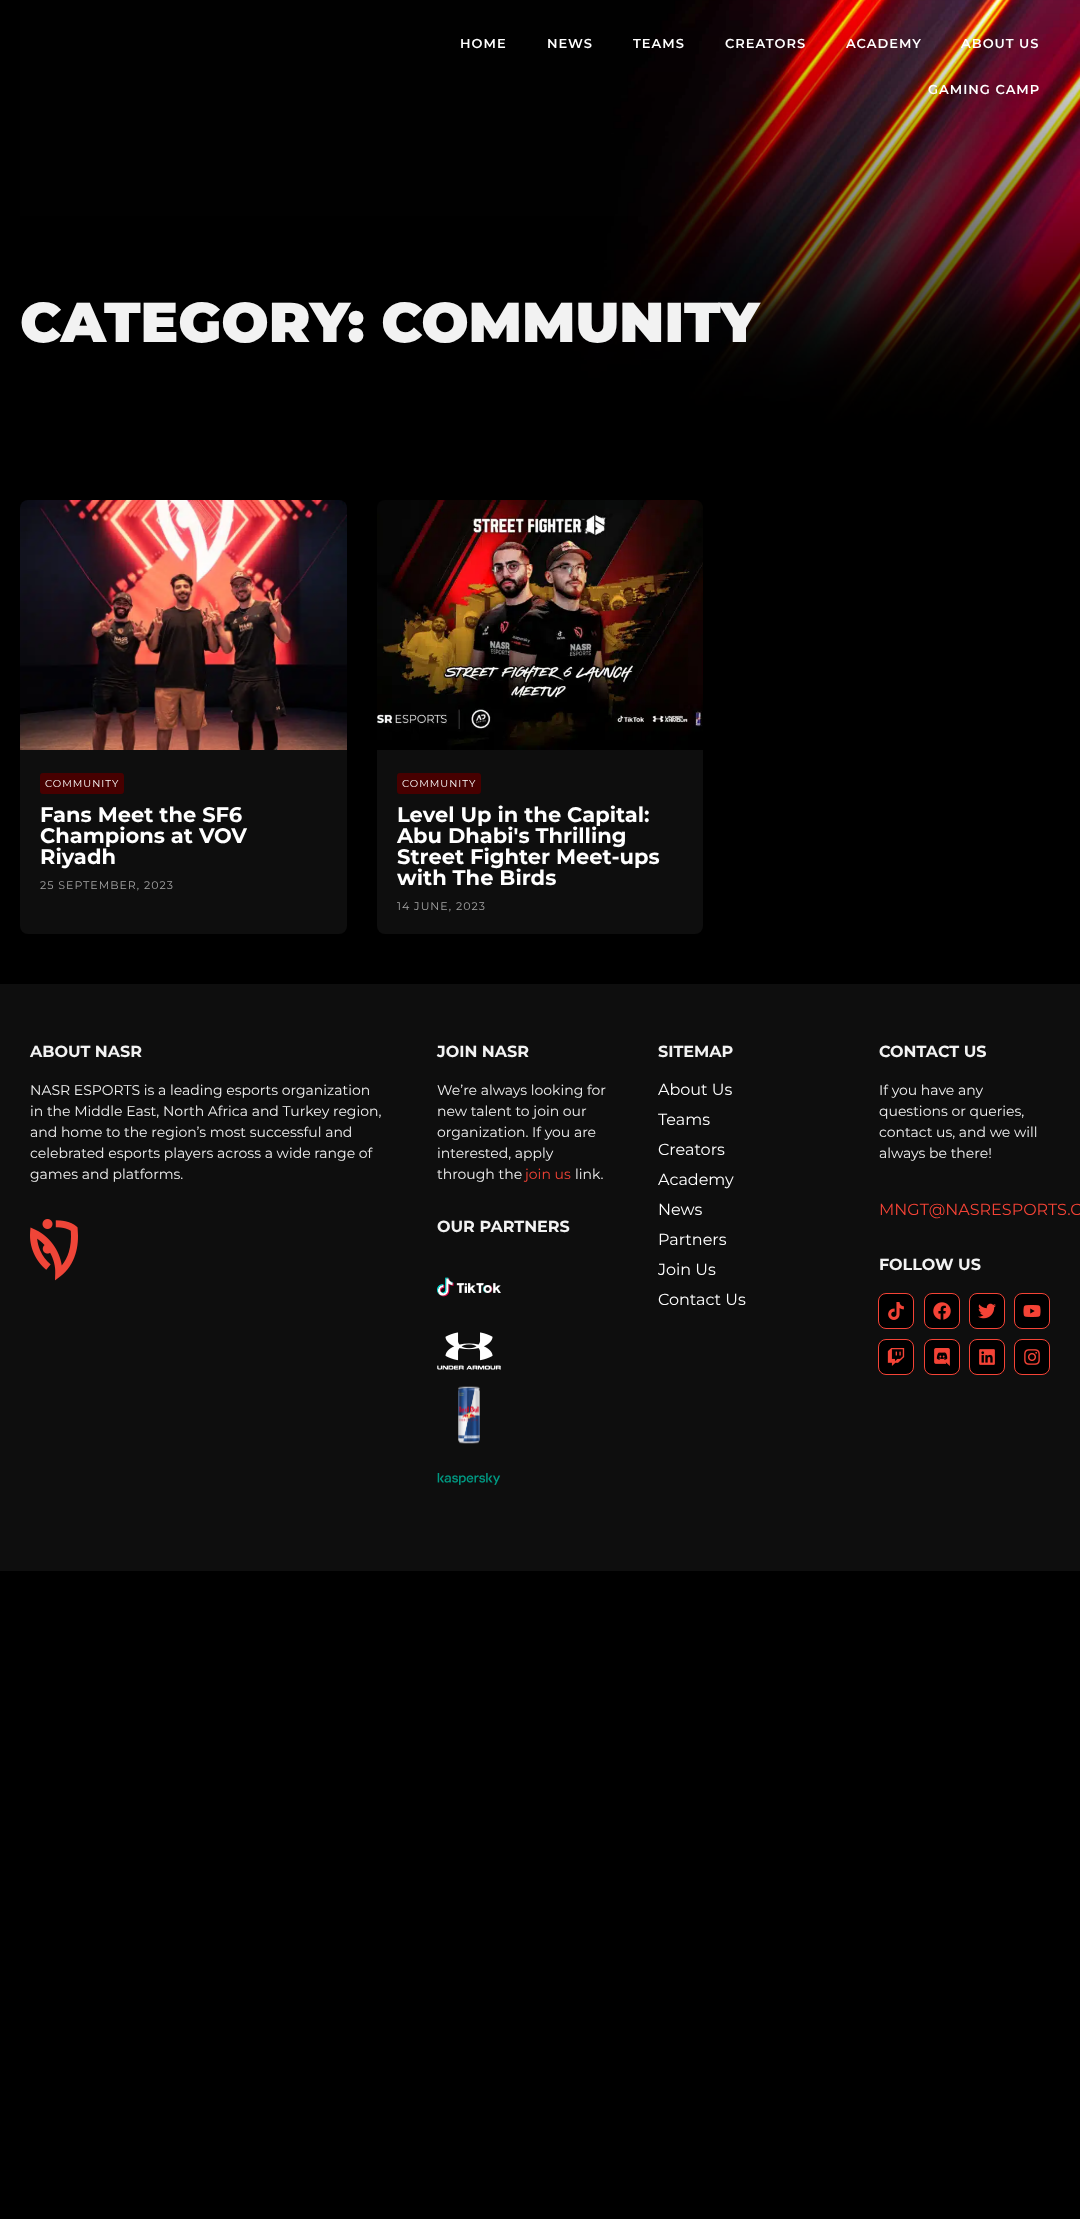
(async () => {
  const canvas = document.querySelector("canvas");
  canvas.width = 1080;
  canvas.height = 2219;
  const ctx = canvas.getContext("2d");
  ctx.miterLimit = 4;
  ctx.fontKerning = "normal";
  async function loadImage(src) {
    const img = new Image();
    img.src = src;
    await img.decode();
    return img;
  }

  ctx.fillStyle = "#000000";
  ctx.fillRect(0, 0, 1080, 2219);
  ctx.drawImage(await loadImage("img/1.png"), 20, 0, 1060, 450);
  ctx.drawImage(await loadImage("img/2.png"), 20, 500, 327, 250);
  ctx.fillStyle = "#0e0e0e";
  ctx.beginPath();
  ctx.roundRect(20, 750, 327, 184, [0, 0, 8, 8]);
  ctx.fill();
  ctx.fillStyle = "#470000";
  ctx.beginPath();
  ctx.roundRect(40, 773, 84, 21, 3);
  ctx.fill();
  ctx.drawImage(await loadImage("img/3.png"), 377, 500, 326, 250);
  ctx.fillStyle = "#0e0e0e";
  ctx.beginPath();
  ctx.roundRect(377, 750, 326, 184, [0, 0, 8, 8]);
  ctx.fill();
  ctx.fillStyle = "#470000";
  ctx.beginPath();
  ctx.roundRect(397, 773, 84, 21, 3);
  ctx.fill();
  ctx.fillStyle = "#0e0e0e";
  ctx.fillRect(0, 984, 1080, 587);
  ctx.drawImage(await loadImage("img/4.png"), 30, 1219, 48, 62);
  ctx.drawImage(await loadImage("img/5.png"), 437, 1277, 64, 20);
  ctx.drawImage(await loadImage("img/6.png"), 437, 1332, 64, 38);
  ctx.drawImage(await loadImage("img/7.png"), 458, 1386, 22, 58);
  ctx.drawImage(await loadImage("img/8.png"), 437, 1473, 64, 12);
  ctx.fillStyle = "#000000";
  ctx.beginPath();
  ctx.roundRect(878.5, 1293.5, 35, 35, 7.5);
  ctx.fill();
  ctx.strokeStyle = "#f44336";
  ctx.stroke();
  ctx.drawImage(await loadImage("img/9.png"), 888, 1302, 16, 18);
  ctx.beginPath();
  ctx.roundRect(924.5, 1293.5, 35, 35, 7.5);
  ctx.fill();
  ctx.stroke();
  ctx.drawImage(await loadImage("img/10.png"), 933, 1302, 18, 18);
  ctx.beginPath();
  ctx.roundRect(969.5, 1293.5, 35, 35, 7.5);
  ctx.fill();
  ctx.stroke();
  ctx.drawImage(await loadImage("img/11.png"), 978, 1303, 18, 16);
  ctx.beginPath();
  ctx.roundRect(1014.5, 1293.5, 35, 35, 7.5);
  ctx.fill();
  ctx.stroke();
  ctx.drawImage(await loadImage("img/12.png"), 1023, 1305, 18, 12);
  ctx.beginPath();
  ctx.roundRect(878.5, 1339.5, 35, 35, 7.5);
  ctx.fill();
  ctx.stroke();
  ctx.drawImage(await loadImage("img/13.png"), 887, 1348, 18, 18);
  ctx.beginPath();
  ctx.roundRect(924.5, 1339.5, 35, 35, 7.5);
  ctx.fill();
  ctx.stroke();
  ctx.drawImage(await loadImage("img/14.png"), 934, 1348, 16, 18);
  ctx.beginPath();
  ctx.roundRect(969.5, 1339.5, 35, 35, 7.5);
  ctx.fill();
  ctx.stroke();
  ctx.drawImage(await loadImage("img/15.png"), 979, 1349, 16, 16);
  ctx.beginPath();
  ctx.roundRect(1014.5, 1339.5, 35, 35, 7.5);
  ctx.fill();
  ctx.stroke();
  ctx.drawImage(await loadImage("img/16.png"), 1024, 1349, 16, 16);
  ctx.letterSpacing = "1px";
  ctx.font = "600 13px Montserrat";
  ctx.fillStyle = "#ffffff";
  for (const [text, x, y] of [
    ["HOME", 460, 48],
    ["NEWS", 547, 48],
    ["TEAMS", 633, 48],
    ["CREATORS", 725, 48],
    ["ACADEMY", 846, 48],
    ["ABOUT US", 961, 48],
    ["GAMING CAMP", 928, 94],
  ]) {
    ctx.fillText(text, x, y);
  }
  ctx.letterSpacing = "0px";
  ctx.font = "900 56px Montserrat";
  ctx.fillStyle = "#f2f2f2";
  ctx.fillText("CATEGORY: COMMUNITY", 20, 342);
  ctx.letterSpacing = "1px";
  ctx.font = "10px Montserrat";
  ctx.fillStyle = "#ffffff";
  ctx.fillText("COMMUNITY", 45, 787);
  ctx.letterSpacing = "0px";
  ctx.font = "bold 21px Montserrat";
  for (const [text, x, y] of [
    ["Fans Meet the SF6", 40, 822],
    ["Champions at VOV", 40, 843],
    ["Riyadh", 40, 864],
  ]) {
    ctx.fillText(text, x, y);
  }
  ctx.letterSpacing = "1px";
  ctx.font = "11px Montserrat";
  ctx.fillStyle = "#a5a5a5";
  ctx.fillText("25 SEPTEMBER, 2023", 40, 889);
  ctx.font = "10px Montserrat";
  ctx.fillStyle = "#ffffff";
  ctx.fillText("COMMUNITY", 402, 787);
  ctx.letterSpacing = "0px";
  ctx.font = "bold 21px Montserrat";
  for (const [text, x, y] of [
    ["Level Up in the Capital:", 397, 822],
    ["Abu Dhabi's Thrilling", 397, 843],
    ["Street Fighter Meet-ups", 397, 864],
    ["with The Birds", 397, 885],
  ]) {
    ctx.fillText(text, x, y);
  }
  ctx.letterSpacing = "1px";
  ctx.font = "11px Montserrat";
  ctx.fillStyle = "#a5a5a5";
  ctx.fillText("14 JUNE, 2023", 397, 910);
  ctx.letterSpacing = "0px";
  ctx.font = "bold 16px Montserrat";
  ctx.fillStyle = "#f2f2f2";
  ctx.fillText("ABOUT NASR", 30, 1057);
  ctx.font = "14px Montserrat";
  for (const [text, x, y] of [
    ["NASR ESPORTS is a leading esports organization", 30, 1095],
    ["in the Middle East, North Africa and Turkey region,", 30, 1116],
    ["and home to the region’s most successful and", 30, 1137],
    ["celebrated esports players across a wide range of", 30, 1158],
    ["games and platforms.", 30, 1179],
  ]) {
    ctx.fillText(text, x, y);
  }
  ctx.font = "bold 16px Montserrat";
  ctx.fillText("JOIN NASR", 437, 1057);
  ctx.font = "14px Montserrat";
  for (const [text, x, y] of [
    ["We’re always looking for", 437, 1095],
    ["new talent to join our", 437, 1116],
    ["organization. If you are", 437, 1137],
    ["interested, apply", 437, 1158],
    ["through the", 437, 1179],
  ]) {
    ctx.fillText(text, x, y);
  }
  ctx.fillStyle = "#f44336";
  ctx.fillText("join us", 525, 1179);
  ctx.fillStyle = "#f2f2f2";
  ctx.fillText("link.", 575, 1179);
  ctx.font = "bold 16px Montserrat";
  ctx.fillText("OUR PARTNERS", 437, 1232);
  ctx.fillText("SITEMAP", 658, 1057);
  ctx.font = "16px Montserrat";
  ctx.fillStyle = "#ffffff";
  for (const [text, x, y] of [
    ["About Us", 658, 1095],
    ["Teams", 658, 1125],
    ["Creators", 658, 1155],
    ["Academy", 658, 1185],
    ["News", 658, 1215],
    ["Partners", 658, 1245],
    ["Join Us", 658, 1275],
    ["Contact Us", 658, 1305],
  ]) {
    ctx.fillText(text, x, y);
  }
  ctx.font = "bold 16px Montserrat";
  ctx.fillStyle = "#f2f2f2";
  ctx.fillText("CONTACT US", 879, 1057);
  ctx.font = "14px Montserrat";
  for (const [text, x, y] of [
    ["If you have any", 879, 1095],
    ["questions or queries,", 879, 1116],
    ["contact us, and we will", 879, 1137],
    ["always be there!", 879, 1158],
  ]) {
    ctx.fillText(text, x, y);
  }
  ctx.font = "16px Montserrat";
  ctx.fillStyle = "#f44336";
  ctx.fillText("MNGT@NASRESPORTS.C", 879, 1215);
  ctx.font = "bold 16px Montserrat";
  ctx.fillStyle = "#f2f2f2";
  ctx.fillText("FOLLOW US", 879, 1270);
})();
